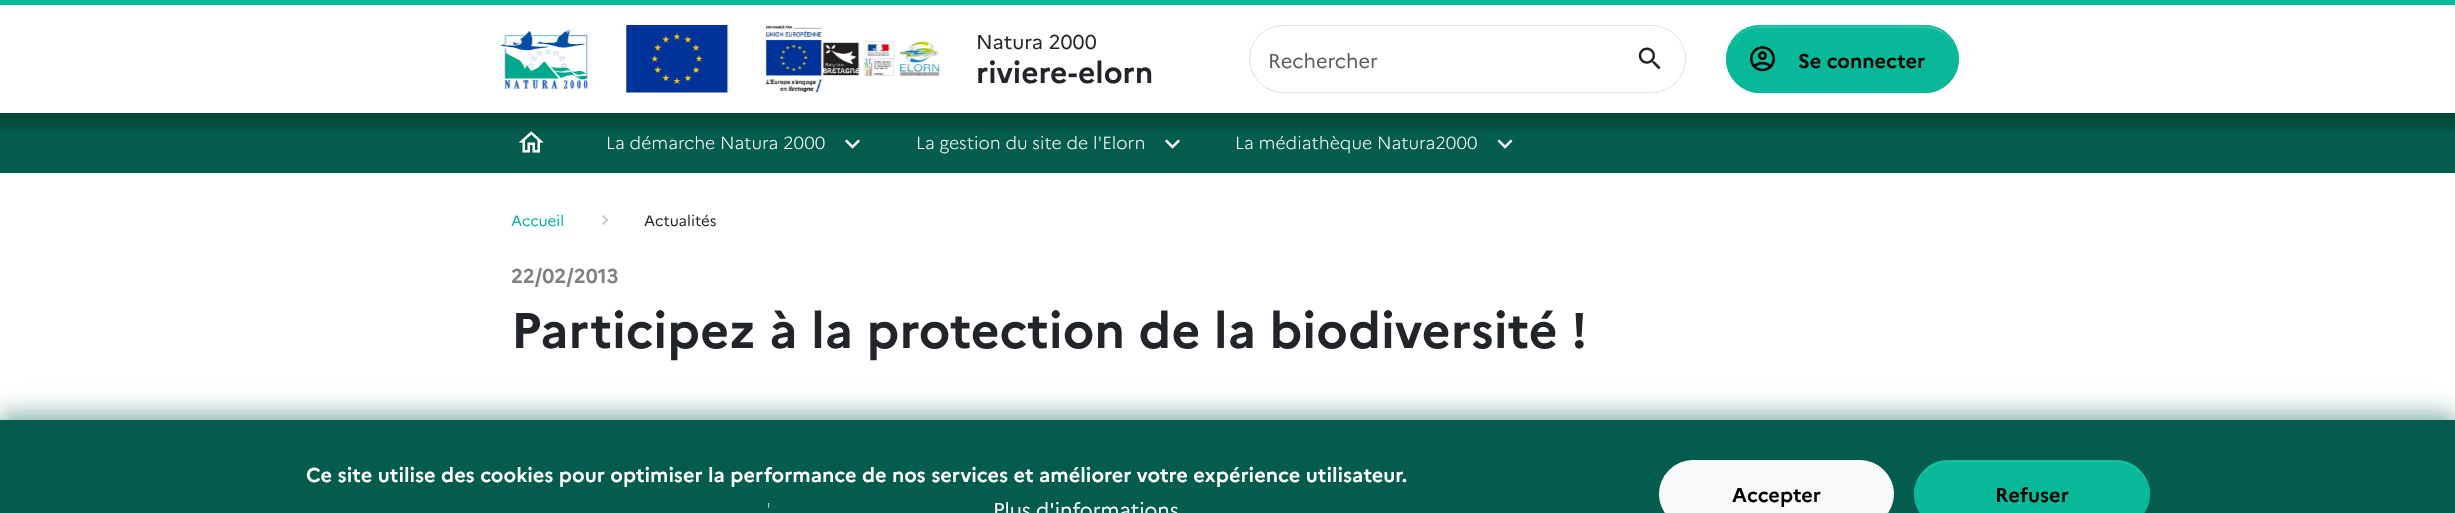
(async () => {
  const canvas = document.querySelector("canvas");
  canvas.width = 2455;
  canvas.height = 513;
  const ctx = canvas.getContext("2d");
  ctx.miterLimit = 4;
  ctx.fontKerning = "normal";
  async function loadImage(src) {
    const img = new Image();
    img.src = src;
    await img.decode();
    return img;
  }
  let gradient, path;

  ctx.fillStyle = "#ffffff";
  ctx.fillRect(0, 0, 2455, 513);
  ctx.fillStyle = "#07b899";
  ctx.fillRect(0, 0, 2455, 5);
  ctx.drawImage(await loadImage("img/1.png"), 500, 29, 88, 60);
  ctx.drawImage(await loadImage("img/2.png"), 626, 25, 103, 68);
  ctx.drawImage(await loadImage("img/3.png"), 765, 25, 175, 68);
  ctx.beginPath();
  ctx.roundRect(1249.5, 25.5, 436, 67, 33.5);
  ctx.strokeStyle = "#dee2e6";
  ctx.stroke();
  ctx.drawImage(await loadImage("img/4.png"), 1638, 47, 23, 23);
  ctx.fillStyle = "rgba(0, 0, 0, 0.07)";
  ctx.filter = "blur(0.5px)";
  ctx.beginPath();
  ctx.roundRect(1726, 26, 233, 68, 34);
  ctx.fill();
  ctx.filter = "none";
  ctx.fillStyle = "#07b899";
  ctx.beginPath();
  ctx.roundRect(1726, 25, 233, 68, 34);
  ctx.fill();
  ctx.fillStyle = "#2cc3a8";
  path = new Path2D("M1760 28H1925C1943 28 1958 42 1958 59V58C1958 41 1943 26 1926 26H1760C1743 26 1728 41 1728 58V59C1728 42 1742 28 1760 28Z");
  ctx.fill(path);
  ctx.beginPath();
  ctx.roundRect(1726.5, 25.5, 232, 67, 33.5);
  ctx.strokeStyle = "#07b899";
  ctx.stroke();
  ctx.drawImage(await loadImage("img/5.png"), 1750, 46, 25, 26);
  ctx.fillStyle = "#045c4d";
  ctx.fillRect(0, 113, 2455, 60);
  ctx.drawImage(await loadImage("img/6.png"), 518, 131, 26, 22);
  for (const [x, y, w, h, color] of [
    [830, 113, 1, 60, "#05594b"],
    [1150, 113, 1, 60, "#05594b"],
    [1483, 113, 1, 60, "#05594b"],
  ]) {
    ctx.fillStyle = color;
    ctx.fillRect(x, y, w, h);
  }
  gradient = ctx.createLinearGradient(1228, 112, 1228, 173);
  gradient.addColorStop(0, "rgba(0, 0, 0, 0.28)");
  gradient.addColorStop(0.38, "rgba(0, 0, 0, 0)");
  ctx.fillStyle = gradient;
  ctx.fillRect(0, 113, 2455, 20);
  ctx.drawImage(await loadImage("img/7.png"), 845, 139, 15, 10);
  ctx.drawImage(await loadImage("img/7.png"), 1165, 139, 15, 10);
  ctx.drawImage(await loadImage("img/8.png"), 1497, 139, 16, 10);
  ctx.drawImage(await loadImage("img/9.png"), 602, 215, 6, 10);
  ctx.fillStyle = "rgba(4, 92, 77, 0.3)";
  ctx.filter = "blur(9px)";
  ctx.beginPath();
  ctx.rect(0, 416, 2455, 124);
  ctx.fill();
  ctx.filter = "none";
  ctx.fillStyle = "rgba(4, 92, 77, 0.2)";
  ctx.filter = "blur(12.5px)";
  ctx.beginPath();
  ctx.rect(0, 408, 2455, 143);
  ctx.fill();
  ctx.filter = "none";
  ctx.fillStyle = "#045c4d";
  ctx.fillRect(0, 420, 2455, 93);
  ctx.fillStyle = "#f8f9fa";
  ctx.beginPath();
  ctx.roundRect(1659.5, 460.5, 234, 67, 33.5);
  ctx.fill();
  ctx.strokeStyle = "#f8f9fa";
  ctx.stroke();
  ctx.fillStyle = "#07b899";
  ctx.beginPath();
  ctx.roundRect(1914, 460, 236, 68, 34);
  ctx.fill();
  ctx.fillStyle = "#2cc3a8";
  path = new Path2D("M1948 462H2116C2134 462 2149 477 2149 494C2149 476 2134 461 2116 461H1948C1930 461 1915 476 1915 494C1915 477 1930 462 1948 462Z");
  ctx.fill(path);
  ctx.beginPath();
  ctx.roundRect(1914.5, 460.5, 235, 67, 33.5);
  ctx.strokeStyle = "#07b899";
  ctx.stroke();
  ctx.font = "20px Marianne";
  ctx.fillStyle = "#212529";
  ctx.fillText("Natura 2000", 976, 49);
  ctx.font = "bold 30px Marianne";
  ctx.fillText("riviere-elorn", 976, 83);
  ctx.font = "20px Marianne";
  ctx.fillStyle = "#595c5f";
  ctx.fillText("Rechercher", 1268, 68);
  ctx.font = "bold 20px Marianne";
  ctx.fillStyle = "#000000";
  ctx.fillText("Se connecter", 1798, 68);
  ctx.font = "300 17.5px Marianne";
  ctx.fillStyle = "#ffffff";
  for (const [text, x, y] of [
    ["La démarche Natura 2000", 606, 149],
    ["La gestion du site de l'Elorn", 916, 149],
    ["La médiathèque Natura2000", 1235, 149],
  ]) {
    ctx.fillText(text, x, y);
  }
  ctx.font = "15px Marianne";
  ctx.fillStyle = "#07b899";
  ctx.fillText("Accueil", 511, 226);
  ctx.fillStyle = "#212529";
  ctx.fillText("Actualités", 644, 226);
  ctx.font = "bold 20px Marianne";
  ctx.fillStyle = "#808080";
  ctx.fillText("22/02/2013", 511, 283);
  ctx.font = "bold 50px Marianne";
  ctx.fillStyle = "#212529";
  ctx.fillText("Participez à la protection de la biodiversité !", 511, 348);
  ctx.font = "bold 20px Marianne";
  ctx.fillStyle = "#ffffff";
  ctx.fillText("Ce site utilise des cookies pour optimiser la performance de nos services et améliorer votre expérience utilisateur.", 306, 482);
  ctx.font = "100 20px Marianne";
  ctx.fillText("'", 766, 517);
  ctx.font = "20px Marianne";
  ctx.fillText("Plus d'informations", 993, 517);
  ctx.font = "bold 20px Marianne";
  ctx.fillStyle = "#000000";
  ctx.fillText("Accepter", 1732, 502);
  ctx.fillText("Refuser", 1995, 502);
})();
